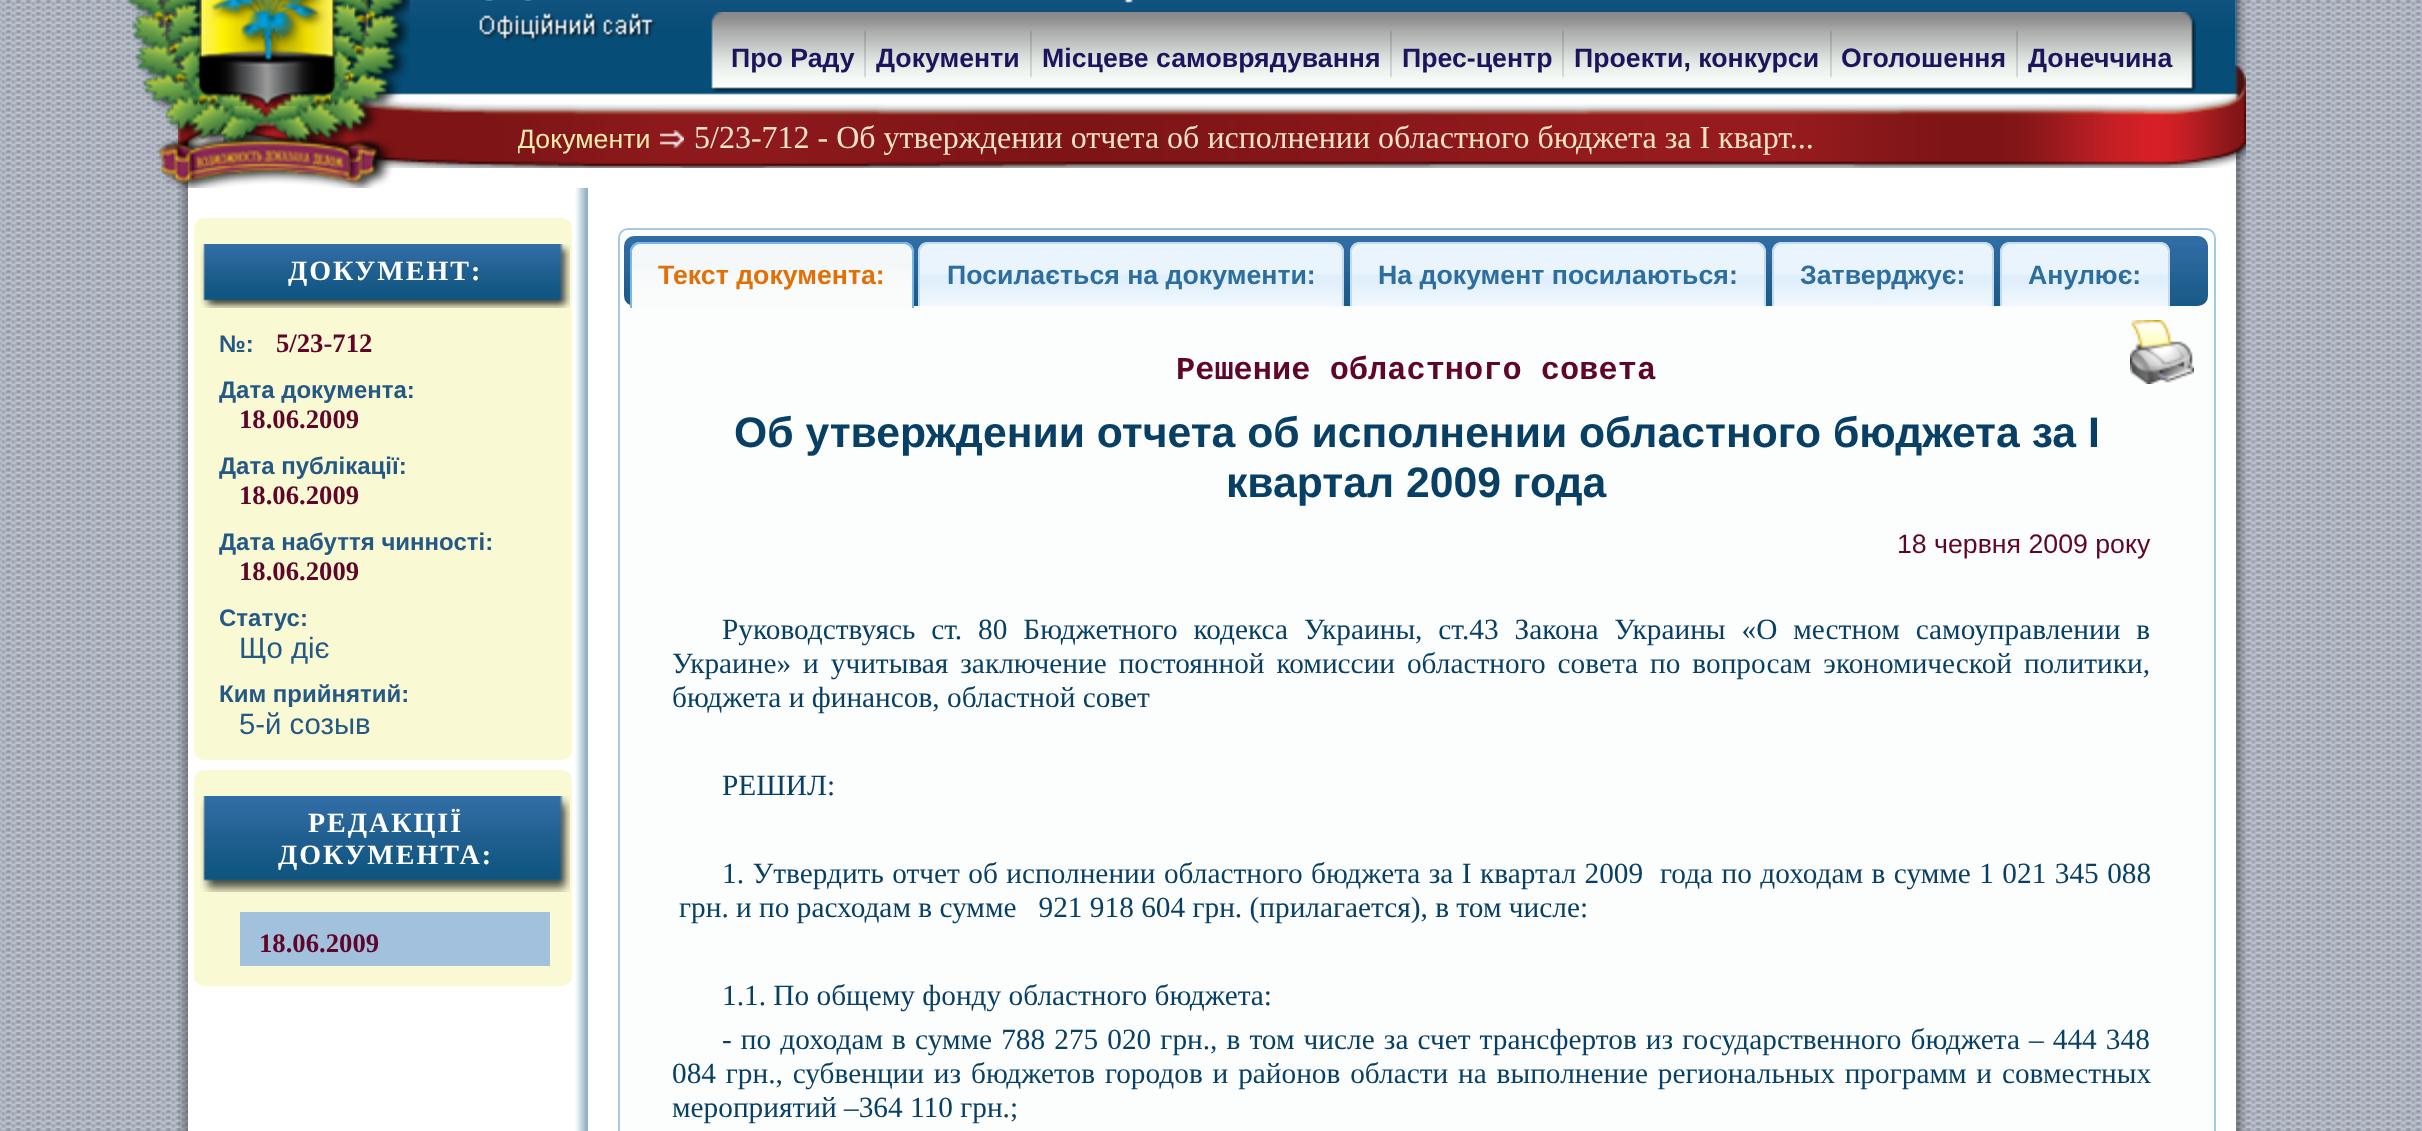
(async () => {
  const canvas = document.querySelector("canvas");
  canvas.width = 2422;
  canvas.height = 1131;
  const ctx = canvas.getContext("2d");
  ctx.miterLimit = 4;
  ctx.fontKerning = "normal";
  async function loadImage(src) {
    const img = new Image();
    img.src = src;
    await img.decode();
    return img;
  }
  let path;

  ctx.fillStyle = "#ffffff";
  ctx.fillRect(0, 0, 2422, 1131);
  ctx.drawImage(await loadImage("img/1.png"), 0, 0, 2422, 1131);
  ctx.drawImage(await loadImage("img/2.png"), 178, 0, 10, 1131);
  ctx.fillRect(188, 0, 2048, 1131);
  ctx.drawImage(await loadImage("img/25.png"), 2236, 0, 10, 1131);
  ctx.drawImage(await loadImage("img/3.png"), 178, 0, 2068, 168);
  ctx.drawImage(await loadImage("img/4.png"), 127, 0, 283, 188);
  ctx.drawImage(await loadImage("img/5.png"), 711, 12, 11, 80);
  ctx.drawImage(await loadImage("img/6.png"), 722, 12, 142, 80);
  ctx.drawImage(await loadImage("img/7.png"), 864, 12, 2, 80);
  ctx.drawImage(await loadImage("img/8.png"), 866, 12, 164, 80);
  ctx.drawImage(await loadImage("img/7.png"), 1030, 12, 2, 80);
  ctx.drawImage(await loadImage("img/9.png"), 1032, 12, 358, 80);
  ctx.drawImage(await loadImage("img/7.png"), 1390, 12, 2, 80);
  ctx.drawImage(await loadImage("img/10.png"), 1392, 12, 170, 80);
  ctx.drawImage(await loadImage("img/7.png"), 1562, 12, 2, 80);
  ctx.drawImage(await loadImage("img/11.png"), 1564, 12, 266, 80);
  ctx.drawImage(await loadImage("img/7.png"), 1830, 12, 2, 80);
  ctx.drawImage(await loadImage("img/12.png"), 1832, 12, 184, 80);
  ctx.drawImage(await loadImage("img/7.png"), 2016, 12, 2, 80);
  ctx.drawImage(await loadImage("img/8.png"), 2018, 12, 164, 80);
  ctx.drawImage(await loadImage("img/13.png"), 2182, 12, 14, 80);
  ctx.drawImage(await loadImage("img/14.png"), 660, 130, 24, 18);
  ctx.drawImage(await loadImage("img/15.png"), 575, 188, 13, 943);
  ctx.fillStyle = "#f9f9d4";
  ctx.beginPath();
  ctx.roundRect(194, 218, 378, 542, 10);
  ctx.fill();
  ctx.drawImage(await loadImage("img/16.png"), 200, 244, 370, 64);
  ctx.beginPath();
  ctx.roundRect(194, 770, 378, 216, 10);
  ctx.fill();
  ctx.drawImage(await loadImage("img/17.png"), 200, 796, 370, 96);
  ctx.fillStyle = "#a1c1dd";
  ctx.fillRect(240, 912, 310, 54);
  ctx.fillStyle = "#fcfdfd";
  ctx.beginPath();
  ctx.roundRect(619, 229, 1596, 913, 9);
  ctx.fill();
  ctx.strokeStyle = "#a6c9e2";
  ctx.lineWidth = 2;
  ctx.stroke();
  ctx.drawImage(await loadImage("img/18.png"), 624, 236, 1584, 70);
  ctx.drawImage(await loadImage("img/19.png"), 630, 242, 284, 66);
  ctx.fillStyle = "#79b7e7";
  path = new Path2D("M640 242H904C910 242 914 246 914 252V308H630V252C630 246 634 242 640 242ZM640 244H904C908 244 912 248 912 252V308H632V252C632 248 636 244 640 244Z");
  ctx.fill(path, "evenodd");
  ctx.drawImage(await loadImage("img/20.png"), 918, 242, 426, 64);
  ctx.fillStyle = "#c5dbec";
  path = new Path2D("M928 242H1334C1340 242 1344 246 1344 252V306H918V252C918 246 922 242 928 242ZM928 244H1334C1338 244 1342 248 1342 252V306H920V252C920 248 924 244 928 244Z");
  ctx.fill(path, "evenodd");
  ctx.drawImage(await loadImage("img/21.png"), 1350, 242, 416, 64);
  path = new Path2D("M1360 242H1756C1762 242 1766 246 1766 252V306H1350V252C1350 246 1354 242 1360 242ZM1360 244H1756C1760 244 1764 248 1764 252V306H1352V252C1352 248 1356 244 1360 244Z");
  ctx.fill(path, "evenodd");
  ctx.drawImage(await loadImage("img/22.png"), 1772, 242, 222, 64);
  path = new Path2D("M1782 242H1984C1990 242 1994 246 1994 252V306H1772V252C1772 246 1776 242 1782 242ZM1782 244H1984C1988 244 1992 248 1992 252V306H1774V252C1774 248 1778 244 1782 244Z");
  ctx.fill(path, "evenodd");
  ctx.drawImage(await loadImage("img/23.png"), 2000, 242, 170, 64);
  path = new Path2D("M2010 242H2160C2166 242 2170 246 2170 252V306H2000V252C2000 246 2004 242 2010 242ZM2010 244H2160C2164 244 2168 248 2168 252V306H2002V252C2002 248 2006 244 2010 244Z");
  ctx.fill(path, "evenodd");
  ctx.drawImage(await loadImage("img/24.png"), 2130, 320, 64, 64);
  ctx.font = "bold 26.7px Liberation Sans";
  ctx.fillStyle = "#1b155d";
  for (const [text, x, y] of [
    ["Про Раду", 731, 67],
    ["Документи", 876, 67],
    ["Місцеве самоврядування", 1042, 67],
    ["Прес-центр", 1402, 67],
    ["Проекти, конкурси", 1574, 67],
    ["Оголошення", 1841, 67],
    ["Донеччина", 2028, 67],
  ]) {
    ctx.fillText(text, x, y);
  }
  ctx.save();
  ctx.beginPath();
  ctx.rect(518, 120, 1296, 36);
  ctx.clip();
  ctx.font = "26.7px Liberation Sans";
  ctx.fillStyle = "#f1ecac";
  ctx.fillText("Документи", 517, 148);
  ctx.restore();
  ctx.font = "32px Liberation Serif";
  ctx.fillStyle = "#f1e4c5";
  ctx.fillText("5/23-712 - Об утверждении отчета об исполнении областного бюджета за I кварт...", 694, 148);
  ctx.letterSpacing = "2px";
  ctx.font = "bold 28px Liberation Serif";
  ctx.fillStyle = "#ffffff";
  ctx.fillText("ДОКУМЕНТ:", 288, 280);
  ctx.letterSpacing = "0px";
  ctx.font = "bold 24px Liberation Sans";
  ctx.fillStyle = "#255985";
  ctx.fillText("№:", 219, 352);
  ctx.font = "bold 26.7px Liberation Serif";
  ctx.fillStyle = "#60052a";
  ctx.fillText("5/23-712", 276, 352);
  ctx.font = "bold 24px Liberation Sans";
  ctx.fillStyle = "#255985";
  ctx.fillText("Дата документа:", 219, 398);
  ctx.font = "bold 26.7px Liberation Serif";
  ctx.fillStyle = "#60052a";
  ctx.fillText("18.06.2009", 239, 428);
  ctx.font = "bold 24px Liberation Sans";
  ctx.fillStyle = "#255985";
  ctx.fillText("Дата публікації:", 219, 474);
  ctx.font = "bold 26.7px Liberation Serif";
  ctx.fillStyle = "#60052a";
  ctx.fillText("18.06.2009", 239, 504);
  ctx.font = "bold 24px Liberation Sans";
  ctx.fillStyle = "#255985";
  ctx.fillText("Дата набуття чинності:", 219, 550);
  ctx.font = "bold 26.7px Liberation Serif";
  ctx.fillStyle = "#60052a";
  ctx.fillText("18.06.2009", 239, 580);
  ctx.font = "bold 24px Liberation Sans";
  ctx.fillStyle = "#255985";
  ctx.fillText("Статус:", 219, 626);
  ctx.font = "29.33px Liberation Sans";
  ctx.fillText("Що діє", 239, 658);
  ctx.font = "bold 24px Liberation Sans";
  ctx.fillText("Ким прийнятий:", 219, 702);
  ctx.font = "29.33px Liberation Sans";
  ctx.fillText("5-й созыв", 239, 734);
  ctx.letterSpacing = "2px";
  ctx.font = "bold 28px Liberation Serif";
  ctx.fillStyle = "#ffffff";
  ctx.fillText("РЕДАКЦІЇ", 308, 832);
  ctx.fillText("ДОКУМЕНТА:", 278, 864);
  ctx.letterSpacing = "0px";
  ctx.font = "bold 26.7px Liberation Serif";
  ctx.fillStyle = "#60052a";
  ctx.fillText("18.06.2009", 259, 952);
  ctx.font = "bold 26.7px Liberation Sans";
  ctx.fillStyle = "#e17009";
  ctx.fillText("Текст документа:", 658, 284);
  ctx.fillStyle = "#2e6e9e";
  for (const [text, x, y] of [
    ["Посилається на документи:", 947, 284],
    ["На документ посилаються:", 1378, 284],
    ["Затверджує:", 1800, 284],
    ["Анулює:", 2028, 284],
  ]) {
    ctx.fillText(text, x, y);
  }
  ctx.font = "bold 32px Liberation Mono";
  ctx.fillStyle = "#60052a";
  ctx.fillText("Решение областного совета", 1176, 379);
  ctx.font = "bold 42.7px Liberation Sans";
  ctx.fillStyle = "#084065";
  ctx.fillText("Об утверждении отчета об исполнении областного бюджета за I", 734, 447);
  ctx.fillText("квартал 2009 года", 1226, 497);
  ctx.font = "26.7px Liberation Sans";
  ctx.fillStyle = "#60052a";
  ctx.fillText("18 червня 2009 року", 1897, 553);
  ctx.wordSpacing = "8.6px";
  ctx.font = "29.33px Liberation Serif";
  ctx.fillStyle = "#084065";
  ctx.fillText("Руководствуясь ст. 80 Бюджетного кодекса Украины, ст.43 Закона Украины «О местном самоуправлении в", 722, 639);
  ctx.wordSpacing = "4.6px";
  ctx.fillText("Украине» и учитывая заключение постоянной комиссии областного совета по вопросам экономической политики,", 672, 673);
  ctx.wordSpacing = "0px";
  ctx.fillText("бюджета и финансов, областной совет", 672, 707);
  ctx.fillText("РЕШИЛ:", 722, 795);
  ctx.wordSpacing = "1.1px";
  ctx.fillText("1. Утвердить отчет об исполнении областного бюджета за I квартал 2009  года по доходам в сумме 1 021 345 088", 722, 883);
  ctx.wordSpacing = "0px";
  ctx.fillText("грн. и по расходам в сумме   921 918 604 грн. (прилагается), в том числе:", 679, 917);
  ctx.fillText("1.1. По общему фонду областного бюджета:", 722, 1005);
  ctx.wordSpacing = "1.75px";
  ctx.fillText("- по доходам в сумме 788 275 020 грн., в том числе за счет трансфертов из государственного бюджета – 444 348", 722, 1049);
  ctx.wordSpacing = "2.5px";
  ctx.fillText("084 грн., субвенции из бюджетов городов и районов области на выполнение региональных программ и совместных", 672, 1083);
  ctx.wordSpacing = "0px";
  ctx.fillText("мероприятий –364 110 грн.;", 672, 1117);
})();
